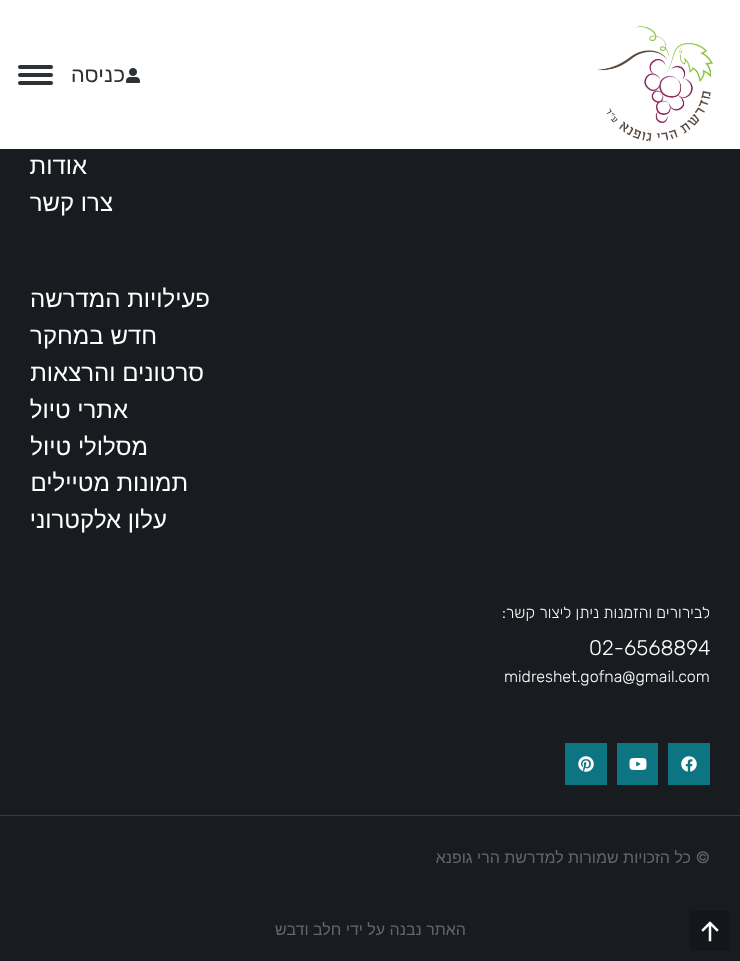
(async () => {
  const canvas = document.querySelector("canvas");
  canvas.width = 740;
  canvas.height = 961;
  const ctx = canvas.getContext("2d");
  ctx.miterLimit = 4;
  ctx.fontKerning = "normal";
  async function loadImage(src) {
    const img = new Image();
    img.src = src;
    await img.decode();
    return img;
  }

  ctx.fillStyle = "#181c20";
  ctx.fillRect(0, 0, 740, 961);
  ctx.fillStyle = "#ffffff";
  ctx.fillRect(0, 0, 740, 149);
  ctx.drawImage(await loadImage("img/1.png"), 597, 26, 117, 116);
  ctx.drawImage(await loadImage("img/2.png"), 126, 68, 14, 15);
  ctx.fillStyle = "#2b3135";
  ctx.beginPath();
  ctx.roundRect(18, 65, 35, 4, 2);
  ctx.fill();
  ctx.beginPath();
  ctx.roundRect(18, 73, 35, 4, 2);
  ctx.fill();
  ctx.beginPath();
  ctx.roundRect(18, 81, 35, 4, 2);
  ctx.fill();
  ctx.fillStyle = "#0d7582";
  ctx.fillRect(668, 743, 42, 42);
  ctx.drawImage(await loadImage("img/3.png"), 681, 756, 16, 16);
  ctx.fillRect(617, 743, 41, 42);
  ctx.drawImage(await loadImage("img/4.png"), 629, 758, 18, 12);
  ctx.fillRect(565, 743, 42, 42);
  ctx.drawImage(await loadImage("img/5.png"), 578, 756, 16, 16);
  ctx.fillStyle = "#383b3e";
  ctx.fillRect(0, 815, 740, 1);
  ctx.fillStyle = "#13161a";
  ctx.fillRect(690, 911, 40, 40);
  ctx.drawImage(await loadImage("img/6.png"), 701, 921, 18, 21);
  ctx.direction = "rtl";
  ctx.font = "22px Rubik";
  ctx.fillStyle = "#2b3135";
  ctx.fillText("כניסה", 125, 82);
  ctx.font = "24px Liberation Sans";
  ctx.fillStyle = "#ffffff";
  for (const [text, x, y] of [
    ["אודות", 87, 174],
    ["צרו קשר", 113, 211],
    ["פעילויות המדרשה", 210, 307],
    ["חדש במחקר", 157, 344],
    ["סרטונים והרצאות", 204, 381],
    ["אתרי טיול", 128, 418],
    ["מסלולי טיול", 148, 455],
    ["תמונות מטיילים", 188, 491],
    ["עלון אלקטרוני", 167, 528],
  ]) {
    ctx.fillText(text, x, y);
  }
  ctx.font = "300 16px Rubik";
  ctx.fillText("לבירורים והזמנות ניתן ליצור קשר:", 710, 618);
  ctx.direction = "ltr";
  ctx.font = "300 21px Rubik";
  ctx.fillText("02-6568894", 589, 655);
  ctx.font = "300 16px Rubik";
  ctx.fillText("midreshet.gofna@gmail.com", 504, 682);
  ctx.direction = "rtl";
  ctx.font = "16px Inter";
  ctx.fillStyle = "#64676a";
  ctx.fillText("©", 710, 863);
  ctx.font = "16px Liberation Sans";
  ctx.fillText("כל הזכויות שמורות למדרשת הרי גופנא", 691, 863);
  ctx.fillText("האתר נבנה על ידי חלב ודבש", 466, 935);
})();
